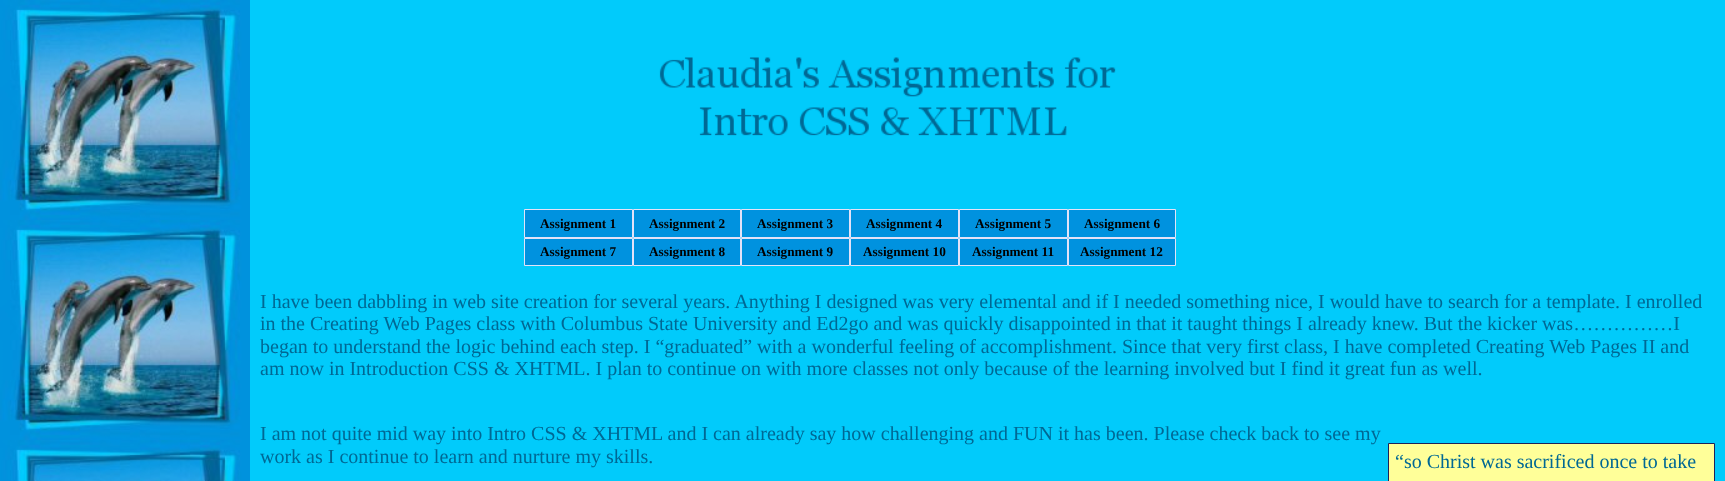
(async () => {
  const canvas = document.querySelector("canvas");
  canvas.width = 1725;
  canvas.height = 481;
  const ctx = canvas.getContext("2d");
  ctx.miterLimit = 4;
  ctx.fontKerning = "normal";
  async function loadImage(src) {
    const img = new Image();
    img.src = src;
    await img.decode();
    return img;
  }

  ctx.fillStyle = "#01cbfb";
  ctx.fillRect(0, 0, 1725, 481);
  ctx.drawImage(await loadImage("img/1.png"), 0, 0, 250, 481);
  ctx.drawImage(await loadImage("img/2.png"), 659, 57, 457, 79);
  ctx.fillStyle = "#0092df";
  ctx.beginPath();
  ctx.rect(524.5, 209.5, 108, 28);
  ctx.fill();
  ctx.strokeStyle = "#e4e2f8";
  ctx.stroke();
  ctx.beginPath();
  ctx.rect(633.5, 209.5, 107, 28);
  ctx.fill();
  ctx.stroke();
  ctx.beginPath();
  ctx.rect(741.5, 209.5, 108, 28);
  ctx.fill();
  ctx.stroke();
  ctx.beginPath();
  ctx.rect(850.5, 209.5, 108, 28);
  ctx.fill();
  ctx.stroke();
  ctx.beginPath();
  ctx.rect(959.5, 209.5, 108, 28);
  ctx.fill();
  ctx.stroke();
  ctx.beginPath();
  ctx.rect(1068.5, 209.5, 107, 28);
  ctx.fill();
  ctx.stroke();
  ctx.beginPath();
  ctx.rect(524.5, 238.5, 108, 27);
  ctx.fill();
  ctx.stroke();
  ctx.beginPath();
  ctx.rect(633.5, 238.5, 107, 27);
  ctx.fill();
  ctx.stroke();
  ctx.beginPath();
  ctx.rect(741.5, 238.5, 108, 27);
  ctx.fill();
  ctx.stroke();
  ctx.beginPath();
  ctx.rect(850.5, 238.5, 108, 27);
  ctx.fill();
  ctx.stroke();
  ctx.beginPath();
  ctx.rect(959.5, 238.5, 108, 27);
  ctx.fill();
  ctx.stroke();
  ctx.beginPath();
  ctx.rect(1068.5, 238.5, 107, 27);
  ctx.fill();
  ctx.stroke();
  ctx.fillStyle = "#ffff99";
  ctx.beginPath();
  ctx.rect(1388.5, 443.5, 326, 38);
  ctx.fill();
  ctx.strokeStyle = "#1f2159";
  ctx.stroke();
  ctx.font = "bold 13.25px Liberation Serif";
  ctx.fillStyle = "#000000";
  for (const [text, x, y] of [
    ["Assignment 1", 540, 228],
    ["Assignment 2", 649, 228],
    ["Assignment 3", 757, 228],
    ["Assignment 4", 866, 228],
    ["Assignment 5", 975, 228],
    ["Assignment 6", 1084, 228],
    ["Assignment 7", 540, 256],
    ["Assignment 8", 649, 256],
    ["Assignment 9", 757, 256],
    ["Assignment 10", 863, 256],
    ["Assignment 11", 972, 256],
    ["Assignment 12", 1080, 256],
  ]) {
    ctx.fillText(text, x, y);
  }
  ctx.font = "20px Liberation Serif";
  ctx.fillStyle = "#006894";
  for (const [text, x, y] of [
    ["I have been dabbling in web site creation for several years. Anything I designed was very elemental and if I needed something nice, I would have to search for a template. I enrolled", 260, 308],
    ["in the Creating Web Pages class with Columbus State University and Ed2go and was quickly disappointed in that it taught things I already knew. But the kicker was……………I", 260, 330],
    ["began to understand the logic behind each step. I “graduated” with a wonderful feeling of accomplishment. Since that very first class, I have completed Creating Web Pages II and", 260, 353],
    ["am now in Introduction CSS & XHTML. I plan to continue on with more classes not only because of the learning involved but I find it great fun as well.", 260, 375],
    ["I am not quite mid way into Intro CSS & XHTML and I can already say how challenging and FUN it has been. Please check back to see my", 260, 440],
    ["work as I continue to learn and nurture my skills.", 260, 463],
    ["“so Christ was sacrificed once to take", 1395, 468],
  ]) {
    ctx.fillText(text, x, y);
  }
})();
